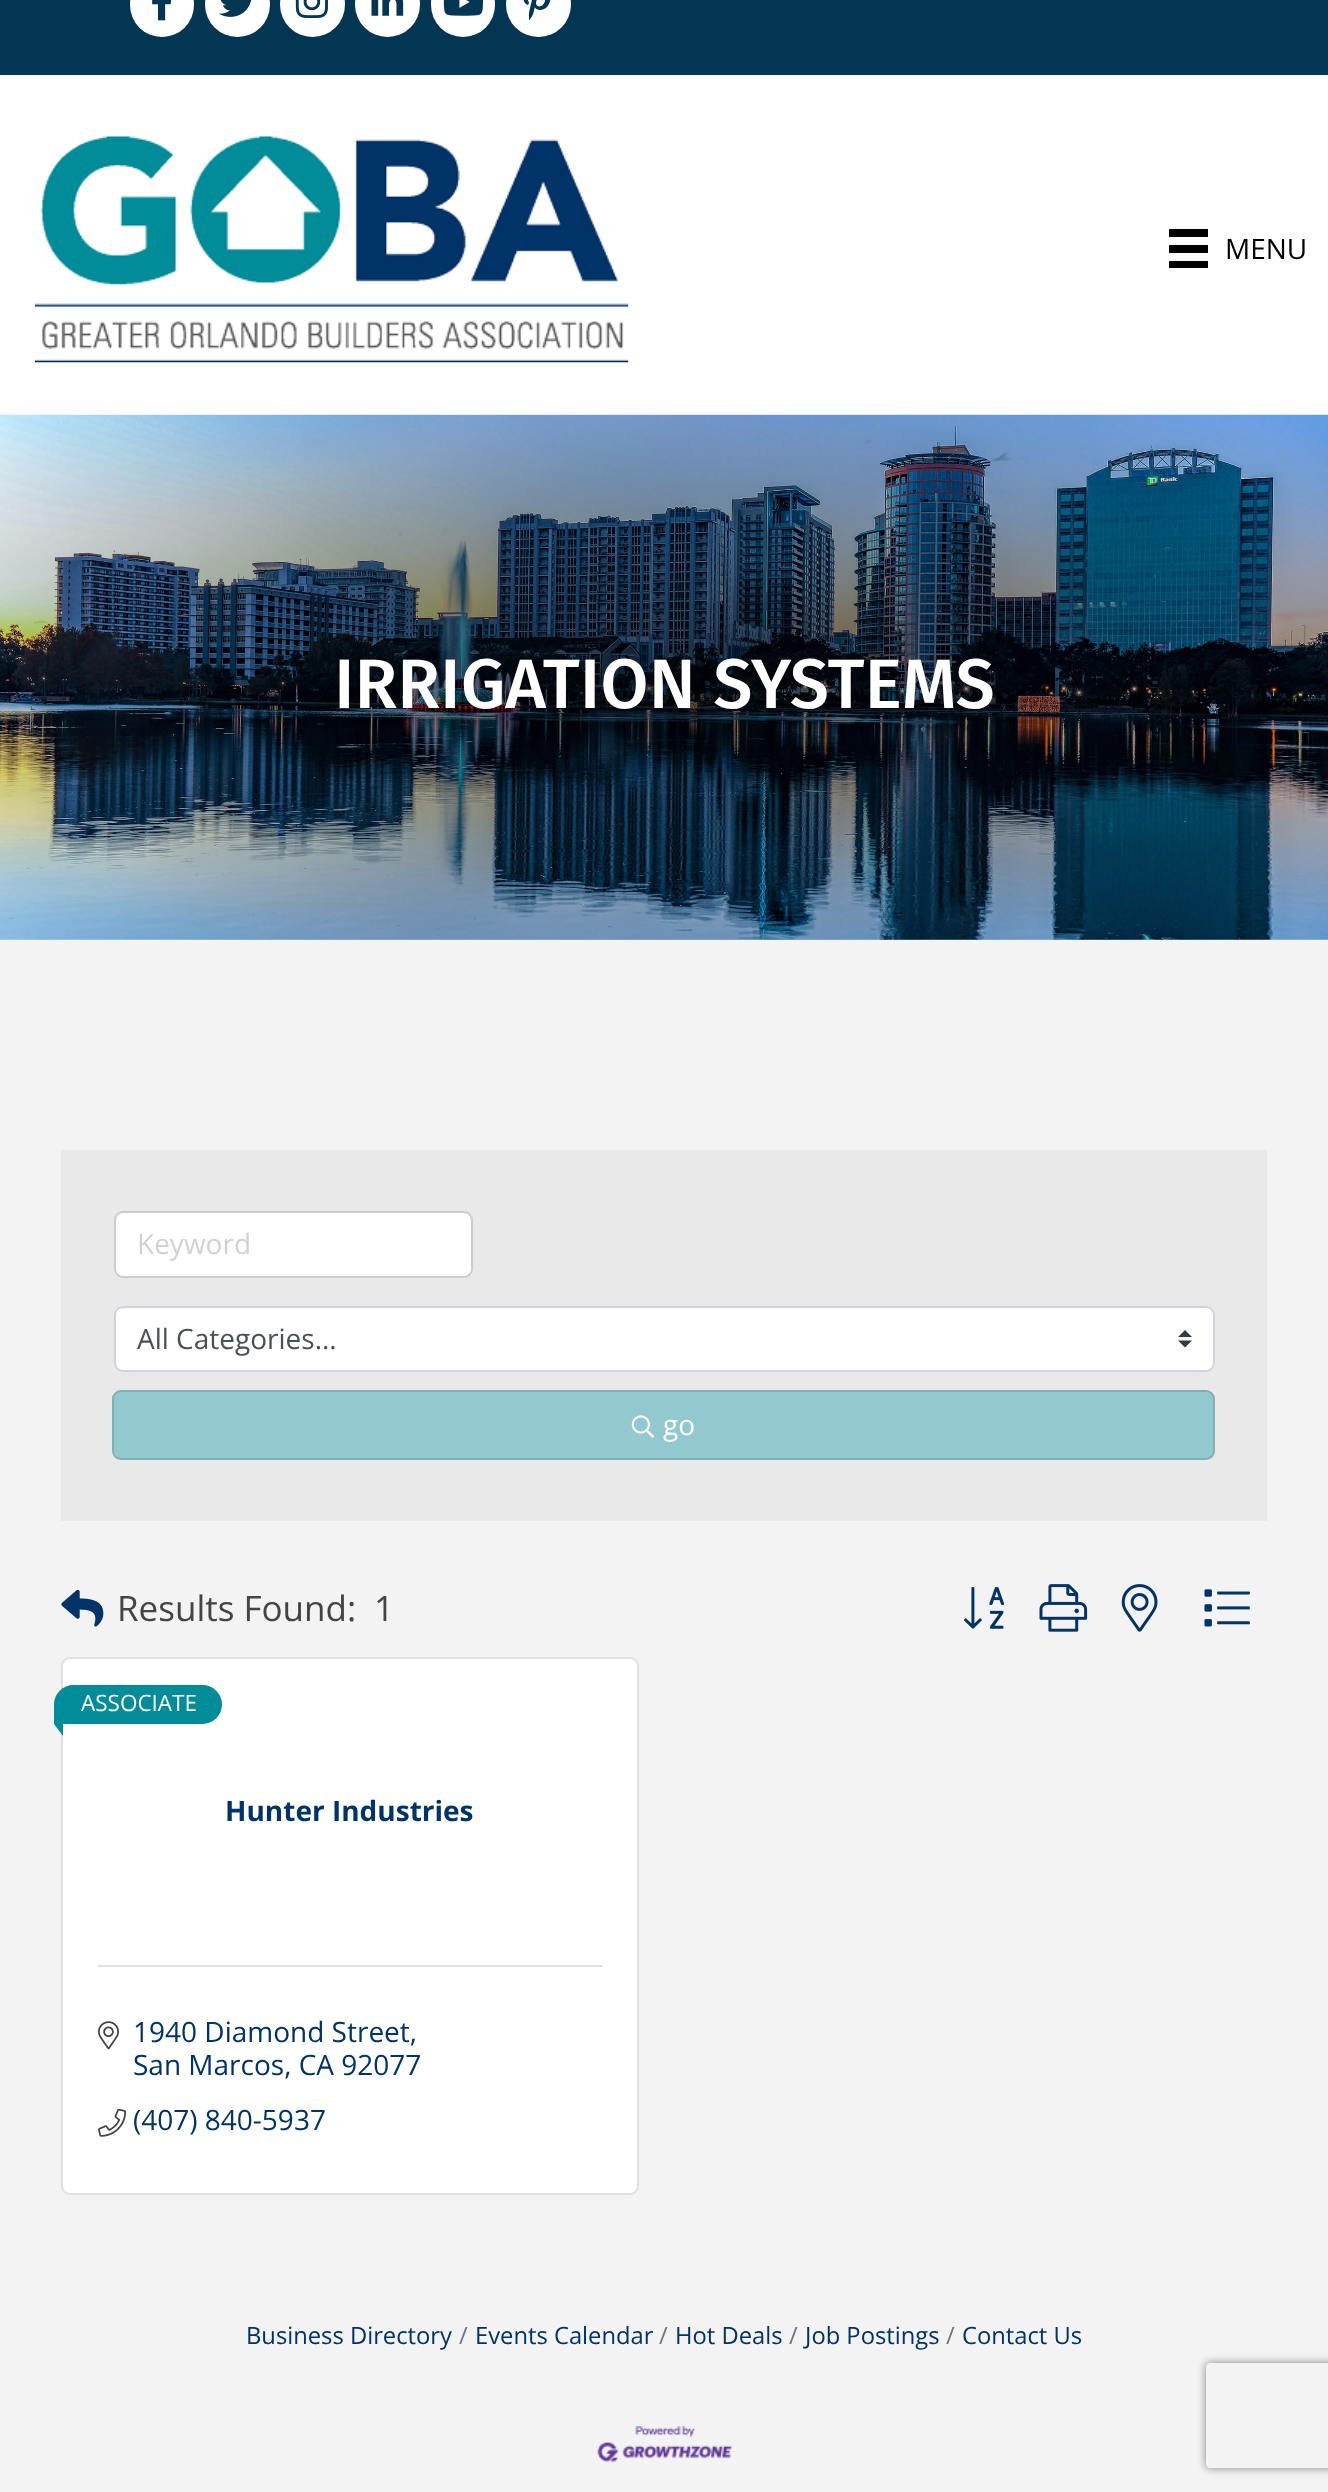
(async () => {
  const canvas = document.querySelector("canvas");
  canvas.width = 1328;
  canvas.height = 2492;
  const ctx = canvas.getContext("2d");
  ctx.miterLimit = 4;
  ctx.fontKerning = "normal";
  async function loadImage(src) {
    const img = new Image();
    img.src = src;
    await img.decode();
    return img;
  }
  let gradient, path;

  ctx.fillStyle = "#ffffff";
  ctx.fillRect(0, 0, 1328, 2492);
  ctx.fillStyle = "#023653";
  ctx.fillRect(0, 0, 1328, 75);
  ctx.fillStyle = "#ffffff";
  ctx.beginPath();
  ctx.roundRect(130, -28, 64, 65, 32);
  ctx.fill();
  ctx.drawImage(await loadImage("img/1.png"), 152, 0, 20, 21);
  ctx.beginPath();
  ctx.arc(237.5, 4.5, 32.5, 0, Math.PI * 2);
  ctx.fill();
  ctx.drawImage(await loadImage("img/2.png"), 219, 0, 33, 17);
  ctx.beginPath();
  ctx.arc(312.5, 4.5, 32.5, 0, Math.PI * 2);
  ctx.fill();
  ctx.drawImage(await loadImage("img/3.png"), 295, 0, 33, 19);
  ctx.beginPath();
  ctx.arc(387.5, 4.5, 32.5, 0, Math.PI * 2);
  ctx.fill();
  ctx.drawImage(await loadImage("img/4.png"), 371, 0, 33, 16);
  ctx.beginPath();
  ctx.roundRect(431, -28, 64, 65, 32);
  ctx.fill();
  ctx.drawImage(await loadImage("img/5.png"), 443, 0, 40, 16);
  ctx.beginPath();
  ctx.arc(538.5, 4.5, 32.5, 0, Math.PI * 2);
  ctx.fill();
  ctx.drawImage(await loadImage("img/6.png"), 523, 0, 28, 20);
  ctx.drawImage(await loadImage("img/7.png"), 35, 136, 594, 227);
  for (const [x, y, w, h, color] of [
    [1169, 229, 39, 8, "#000000"],
    [1169, 245, 39, 8, "#000000"],
    [1169, 261, 39, 7, "#000000"],
    [0, 939, 1328, 1553, "#f3f3f3"],
  ]) {
    ctx.fillStyle = color;
    ctx.fillRect(x, y, w, h);
  }
  ctx.drawImage(await loadImage("img/8.png"), 0, 414, 1328, 526);
  gradient = ctx.createRadialGradient(664, 1713.49, 0, 664, 1713.49, 939);
  gradient.addColorStop(0, "rgba(0, 0, 0, 0.64)");
  gradient.addColorStop(1, "rgba(0, 0, 0, 0)");
  ctx.fillStyle = gradient;
  ctx.beginPath();
  ctx.rect(0, 415, 1328, 525);
  ctx.save();
  ctx.clip();
  ctx.scale(1, 371 / 939);
  ctx.fillRect(0, 0, 1328, 6308);
  ctx.restore();
  ctx.fillStyle = "#e9e9e9";
  ctx.fillRect(61, 1150, 1206, 371);
  ctx.fillStyle = "#ffffff";
  ctx.beginPath();
  ctx.roundRect(116, 1213, 355, 63, 7);
  ctx.fill();
  ctx.beginPath();
  ctx.roundRect(115, 1212, 357, 65, 8);
  ctx.strokeStyle = "rgba(0, 0, 0, 0.12)";
  ctx.lineWidth = 2;
  ctx.stroke();
  ctx.beginPath();
  ctx.roundRect(114, 1306, 1101, 66, 9);
  ctx.fill();
  ctx.fillStyle = "#343a40";
  path = new Path2D("M1185 1330L1178 1337H1192ZM1185 1347.5L1178 1340.5H1192Z");
  ctx.fill(path);
  ctx.beginPath();
  ctx.roundRect(115, 1307, 1099, 64, 8);
  ctx.strokeStyle = "#ced4da";
  ctx.stroke();
  ctx.fillStyle = "#91c9ce";
  ctx.beginPath();
  ctx.roundRect(112, 1390, 1103, 70, 9);
  ctx.fill();
  ctx.beginPath();
  ctx.roundRect(113, 1391, 1101, 68, 8);
  ctx.strokeStyle = "rgba(0, 0, 0, 0.12)";
  ctx.stroke();
  ctx.drawImage(await loadImage("img/9.png"), 631, 1415, 24, 23);
  ctx.drawImage(await loadImage("img/10.png"), 61, 1589, 43, 38);
  ctx.drawImage(await loadImage("img/11.png"), 964, 1587, 41, 42);
  ctx.drawImage(await loadImage("img/12.png"), 1039, 1584, 49, 48);
  ctx.drawImage(await loadImage("img/13.png"), 1121, 1584, 37, 48);
  ctx.drawImage(await loadImage("img/14.png"), 1204, 1589, 46, 38);
  ctx.fillStyle = "#ffffff";
  ctx.beginPath();
  ctx.roundRect(61, 1657, 578, 538, 9);
  ctx.fill();
  ctx.beginPath();
  ctx.roundRect(62, 1658, 576, 536, 8);
  ctx.stroke();
  ctx.fillStyle = "#008c99";
  ctx.beginPath();
  ctx.roundRect(54, 1685, 168, 39, [19.5, 19.5, 19.5, 1]);
  ctx.fill();
  path = new Path2D("M63 1711.5V1736L54 1724Z");
  ctx.fill(path);
  ctx.fillStyle = "#dfdfdf";
  ctx.fillRect(98, 1965, 504, 2);
  ctx.drawImage(await loadImage("img/15.png"), 98, 2021, 21, 29);
  ctx.drawImage(await loadImage("img/16.png"), 98, 2108, 28, 29);
  ctx.drawImage(await loadImage("img/17.png"), 597, 2426, 136, 37);
  ctx.save();
  path = new Path2D("M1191 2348H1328V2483H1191ZM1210 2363H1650C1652 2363 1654 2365 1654 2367V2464C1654 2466 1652 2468 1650 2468H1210C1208 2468 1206 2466 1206 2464V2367C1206 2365 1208 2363 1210 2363Z");
  ctx.clip(path, "evenodd");
  ctx.fillStyle = "#808080";
  ctx.filter = "blur(4.5px)";
  ctx.beginPath();
  ctx.roundRect(1206, 2363, 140, 105, 4);
  ctx.fill();
  ctx.filter = "none";
  ctx.restore();
  ctx.font = "28px Open Sans";
  ctx.fillStyle = "#000000";
  ctx.fillText("MENU", 1225, 259);
  ctx.font = "500 70px Fira Sans";
  ctx.fillStyle = "#ffffff";
  ctx.fillText("IRRIGATION SYSTEMS", 334, 708);
  ctx.font = "28px Open Sans";
  ctx.fillStyle = "#d2d2d2";
  ctx.fillText("Keyword", 137, 1254);
  ctx.fillStyle = "#495057";
  ctx.fillText("All Categories...", 137, 1349);
  ctx.fillStyle = "#ffffff";
  ctx.fillText("go", 663, 1435);
  ctx.font = "35px Open Sans";
  ctx.fillStyle = "#444444";
  ctx.fillText("Results Found:", 117, 1621);
  ctx.fillText("1", 374, 1621);
  ctx.font = "22.5px Open Sans";
  ctx.fillStyle = "#ffffff";
  ctx.fillText("ASSOCIATE", 81, 1711);
  ctx.font = "bold 28px Open Sans";
  ctx.fillStyle = "#003368";
  ctx.fillText("Hunter Industries", 225, 1821);
  ctx.font = "28px Open Sans";
  for (const [text, x, y] of [
    ["1940 Diamond Street,", 133, 2042],
    ["San Marcos, CA 92077", 133, 2075],
    ["(407) 840-5937", 133, 2130],
  ]) {
    ctx.fillText(text, x, y);
  }
  ctx.font = "23.75px Open Sans";
  ctx.fillText("Business Directory", 246, 2344);
  ctx.fillStyle = "#6c757d";
  ctx.fillText("/", 459, 2344);
  ctx.fillStyle = "#003368";
  ctx.fillText("Events Calendar", 475, 2344);
  ctx.fillStyle = "#6c757d";
  ctx.fillText("/", 659, 2344);
  ctx.fillStyle = "#003368";
  ctx.fillText("Hot Deals", 675, 2344);
  ctx.fillStyle = "#6c757d";
  ctx.fillText("/", 789, 2344);
  ctx.fillStyle = "#003368";
  ctx.fillText("Job Postings", 805, 2344);
  ctx.fillStyle = "#6c757d";
  ctx.fillText("/", 946, 2344);
  ctx.fillStyle = "#003368";
  ctx.fillText("Contact Us", 962, 2344);
})();
